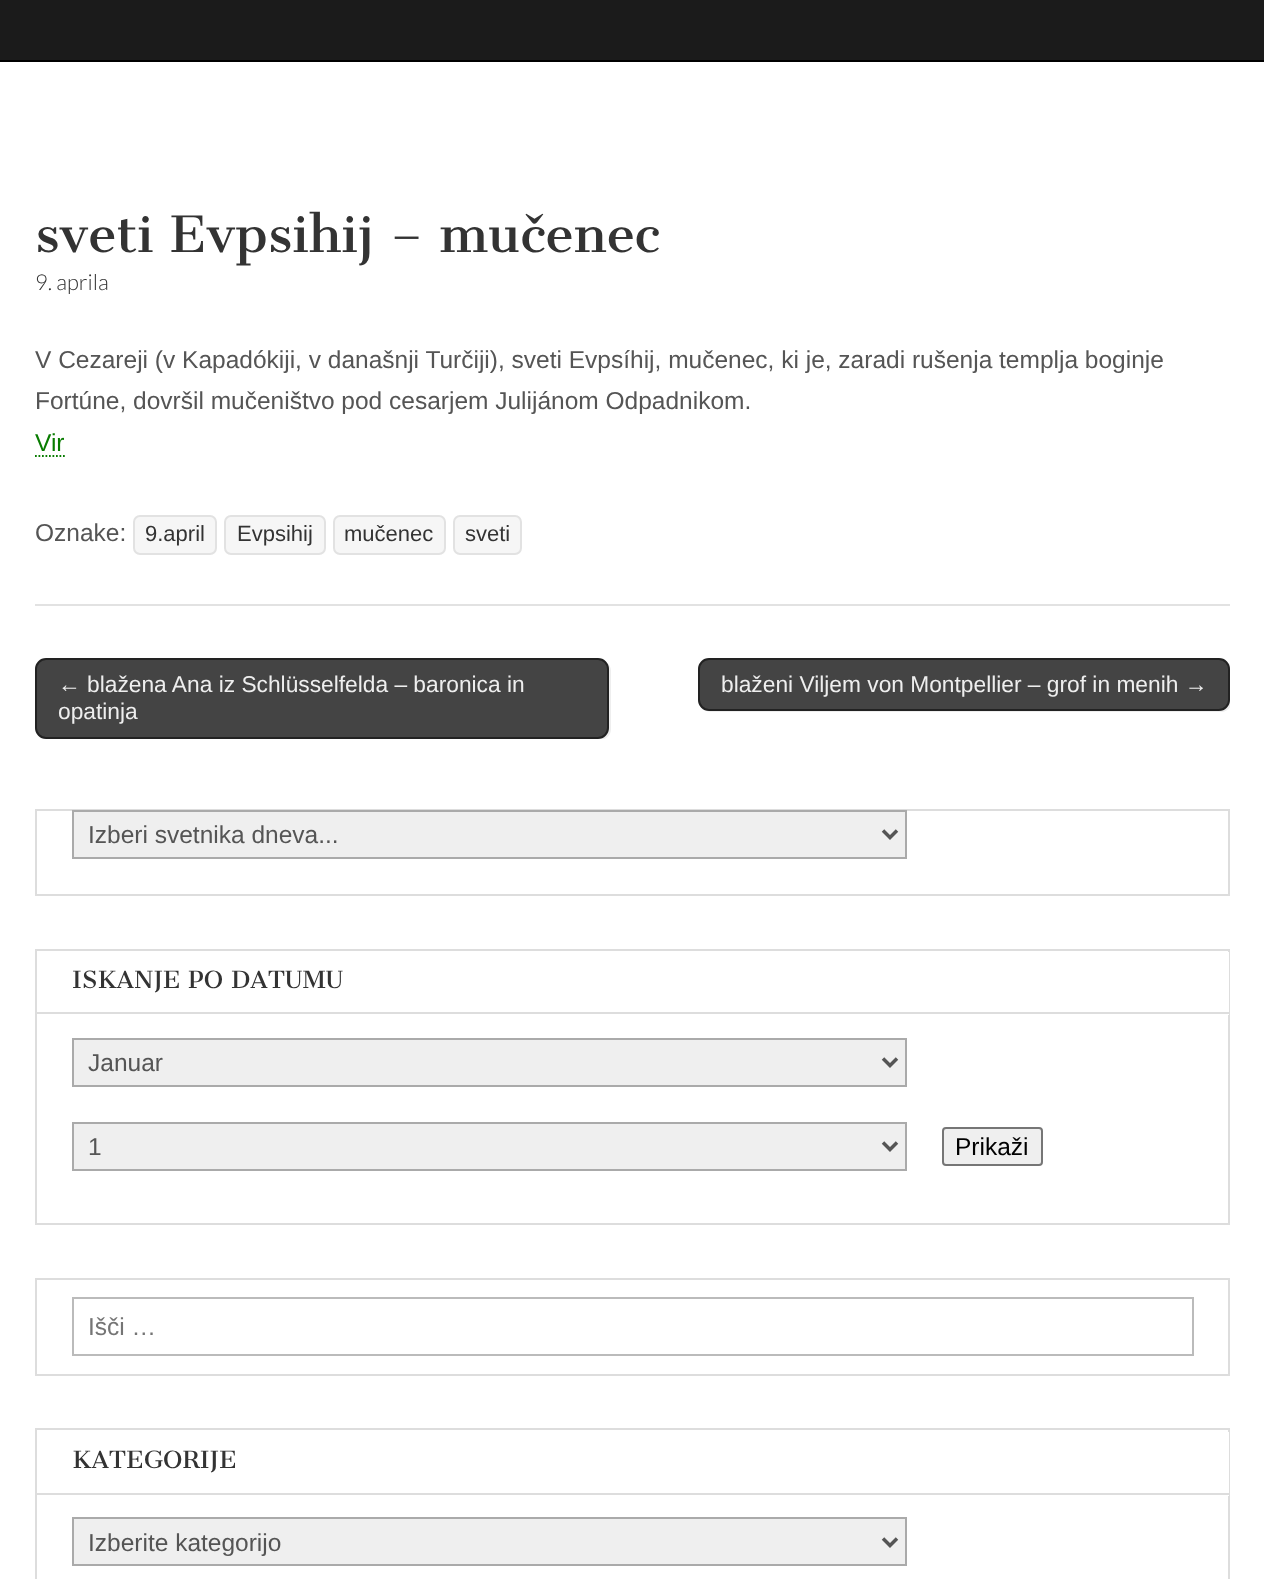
(async () => {
  const canvas = document.querySelector("canvas");
  canvas.width = 1264;
  canvas.height = 1579;
  const ctx = canvas.getContext("2d");
  ctx.miterLimit = 4;
  ctx.fontKerning = "normal";
  let path;

  ctx.fillStyle = "#ffffff";
  ctx.fillRect(0, 0, 1264, 1579);
  for (const [x, y, w, h, color] of [
    [0, 0, 1264, 60, "#1b1b1b"],
    [0, 60, 1264, 2, "#000000"],
    [35, 604, 1195, 2, "#e2e2e2"],
  ]) {
    ctx.fillStyle = color;
    ctx.fillRect(x, y, w, h);
  }
  path = new Path2D("M35 456H65");
  ctx.strokeStyle = "#097c01";
  ctx.lineWidth = 1.8;
  ctx.setLineDash([1.75, 1.75]);
  ctx.stroke(path);
  ctx.fillStyle = "#f6f6f6";
  ctx.beginPath();
  ctx.roundRect(134, 516, 82, 38, 6);
  ctx.fill();
  ctx.strokeStyle = "#e2e2e2";
  ctx.lineWidth = 2;
  ctx.setLineDash([]);
  ctx.stroke();
  ctx.beginPath();
  ctx.roundRect(225, 516, 100, 38, 6);
  ctx.fill();
  ctx.stroke();
  ctx.beginPath();
  ctx.roundRect(334, 516, 111, 38, 6);
  ctx.fill();
  ctx.stroke();
  ctx.beginPath();
  ctx.roundRect(454, 516, 67, 38, 6);
  ctx.fill();
  ctx.stroke();
  ctx.save();
  ctx.beginPath();
  ctx.rect(35, 658, 1195, 81);
  ctx.clip();
  ctx.fillStyle = "#eeeeee";
  path = new Path2D("M41 737C43 739 45 740 48 740H600C606 740 611 735 611 729V671C611 668 610 665 607 663C608 664 609 666 609 668V728C609 734 604 738 598 738H46C44 738 42 738 41 737Z");
  ctx.fill(path);
  ctx.restore();
  ctx.fillStyle = "#444444";
  ctx.beginPath();
  ctx.roundRect(36, 659, 572, 79, 10);
  ctx.fill();
  ctx.strokeStyle = "#222222";
  ctx.stroke();
  ctx.save();
  ctx.beginPath();
  ctx.rect(35, 658, 1195, 81);
  ctx.clip();
  ctx.fillStyle = "#eeeeee";
  path = new Path2D("M704 709C706 711 708 712 711 712H1221C1227 712 1232 707 1232 701V671C1232 668 1231 665 1229 663C1230 665 1230 667 1230 668V700C1230 706 1226 710 1220 710H709C707 710 705 710 704 709Z");
  ctx.fill(path);
  ctx.restore();
  ctx.beginPath();
  ctx.roundRect(699, 659, 530, 51, 10);
  ctx.fill();
  ctx.stroke();
  ctx.strokeStyle = "#dddddd";
  ctx.strokeRect(36, 810, 1193, 85);
  ctx.fillStyle = "#efefef";
  ctx.beginPath();
  ctx.rect(73, 811, 833, 47);
  ctx.fill();
  ctx.strokeStyle = "#aaaaaa";
  ctx.stroke();
  path = new Path2D("M883 830.5L890 837.5L897 830.5");
  ctx.strokeStyle = "#555555";
  ctx.lineWidth = 3.5;
  ctx.stroke(path);
  ctx.strokeStyle = "#dddddd";
  ctx.lineWidth = 2;
  ctx.strokeRect(36, 950, 1193, 274);
  ctx.fillStyle = "#ffffff";
  path = new Path2D("M37 1013V1015H1229V952H1228V1013Z");
  ctx.fill(path);
  ctx.fillStyle = "#dddddd";
  ctx.fillRect(37, 1012, 1192, 2);
  ctx.fillStyle = "#efefef";
  ctx.beginPath();
  ctx.rect(73, 1039, 833, 47);
  ctx.fill();
  ctx.strokeStyle = "#aaaaaa";
  ctx.stroke();
  path = new Path2D("M883 1058.5L890 1065.5L897 1058.5");
  ctx.strokeStyle = "#555555";
  ctx.lineWidth = 3.5;
  ctx.stroke(path);
  ctx.beginPath();
  ctx.rect(73, 1123, 833, 47);
  ctx.fill();
  ctx.strokeStyle = "#aaaaaa";
  ctx.lineWidth = 2;
  ctx.stroke();
  path = new Path2D("M883 1142.5L890 1149.5L897 1142.5");
  ctx.strokeStyle = "#555555";
  ctx.lineWidth = 3.5;
  ctx.stroke(path);
  ctx.beginPath();
  ctx.roundRect(943, 1128, 99, 37, 3);
  ctx.fill();
  ctx.strokeStyle = "#767676";
  ctx.lineWidth = 2;
  ctx.stroke();
  ctx.strokeStyle = "#dddddd";
  ctx.strokeRect(36, 1279, 1193, 96);
  ctx.strokeStyle = "#bbbbbb";
  ctx.strokeRect(73, 1298, 1120, 57);
  ctx.strokeStyle = "#dddddd";
  ctx.strokeRect(36, 1429, 1193, 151);
  ctx.fillStyle = "#ffffff";
  path = new Path2D("M37 1494V1496H1229V1432H1228V1494Z");
  ctx.fill(path);
  ctx.fillStyle = "#dddddd";
  ctx.fillRect(37, 1493, 1192, 2);
  ctx.fillStyle = "#efefef";
  ctx.beginPath();
  ctx.rect(73, 1518, 833, 47);
  ctx.fill();
  ctx.strokeStyle = "#aaaaaa";
  ctx.stroke();
  path = new Path2D("M883 1538.5L890 1545.5L897 1538.5");
  ctx.strokeStyle = "#555555";
  ctx.lineWidth = 3.5;
  ctx.stroke(path);
  ctx.font = "49px Cantata One";
  ctx.fillStyle = "#333333";
  ctx.fillText("sveti Evpsihij – mučenec", 35, 252);
  ctx.font = "300 22px Lato";
  ctx.fillText("9. aprila", 35, 290);
  ctx.font = "24.5px Liberation Sans";
  ctx.fillStyle = "#555555";
  ctx.fillText("V Cezareji (v Kapadókiji, v današnji Turčiji), sveti Evpsíhij, mučenec, ki je, zaradi rušenja templja boginje", 35, 368);
  ctx.fillText("Fortúne, dovršil mučeništvo pod cesarjem Julijánom Odpadnikom.", 35, 409);
  ctx.fillStyle = "#097c01";
  ctx.fillText("Vir", 35, 451);
  ctx.fillStyle = "#555555";
  ctx.fillText("Oznake:", 35, 541);
  ctx.font = "22px Liberation Sans";
  ctx.fillStyle = "#333333";
  for (const [text, x, y] of [
    ["9.april", 145, 541],
    ["Evpsihij", 237, 541],
    ["mučenec", 344, 541],
    ["sveti", 465, 541],
  ]) {
    ctx.fillText(text, x, y);
  }
  ctx.font = "22.75px Liberation Sans";
  ctx.fillStyle = "#eeeeee";
  for (const [text, x, y] of [
    ["← blažena Ana iz Schlüsselfelda – baronica in", 58, 692],
    ["opatinja", 58, 719],
    ["blaženi Viljem von Montpellier – grof in menih →", 721, 692],
  ]) {
    ctx.fillText(text, x, y);
  }
  ctx.font = "24.5px Liberation Sans";
  ctx.fillStyle = "#555555";
  ctx.fillText("Izberi svetnika dneva...", 88, 843);
  ctx.font = "23.25px Cantata One";
  ctx.fillStyle = "#333333";
  ctx.fillText("ISKANJE PO DATUMU", 72, 988);
  ctx.font = "24.5px Liberation Sans";
  ctx.fillStyle = "#555555";
  ctx.fillText("Januar", 88, 1071);
  ctx.fillText("1", 88, 1155);
  ctx.fillStyle = "#000000";
  ctx.fillText("Prikaži", 955, 1155);
  ctx.fillStyle = "#757575";
  ctx.fillText("Išči …", 88, 1335);
  ctx.font = "23.25px Cantata One";
  ctx.fillStyle = "#333333";
  ctx.fillText("KATEGORIJE", 72, 1468);
  ctx.font = "24.5px Liberation Sans";
  ctx.fillStyle = "#555555";
  ctx.fillText("Izberite kategorijo", 88, 1551);
})();
